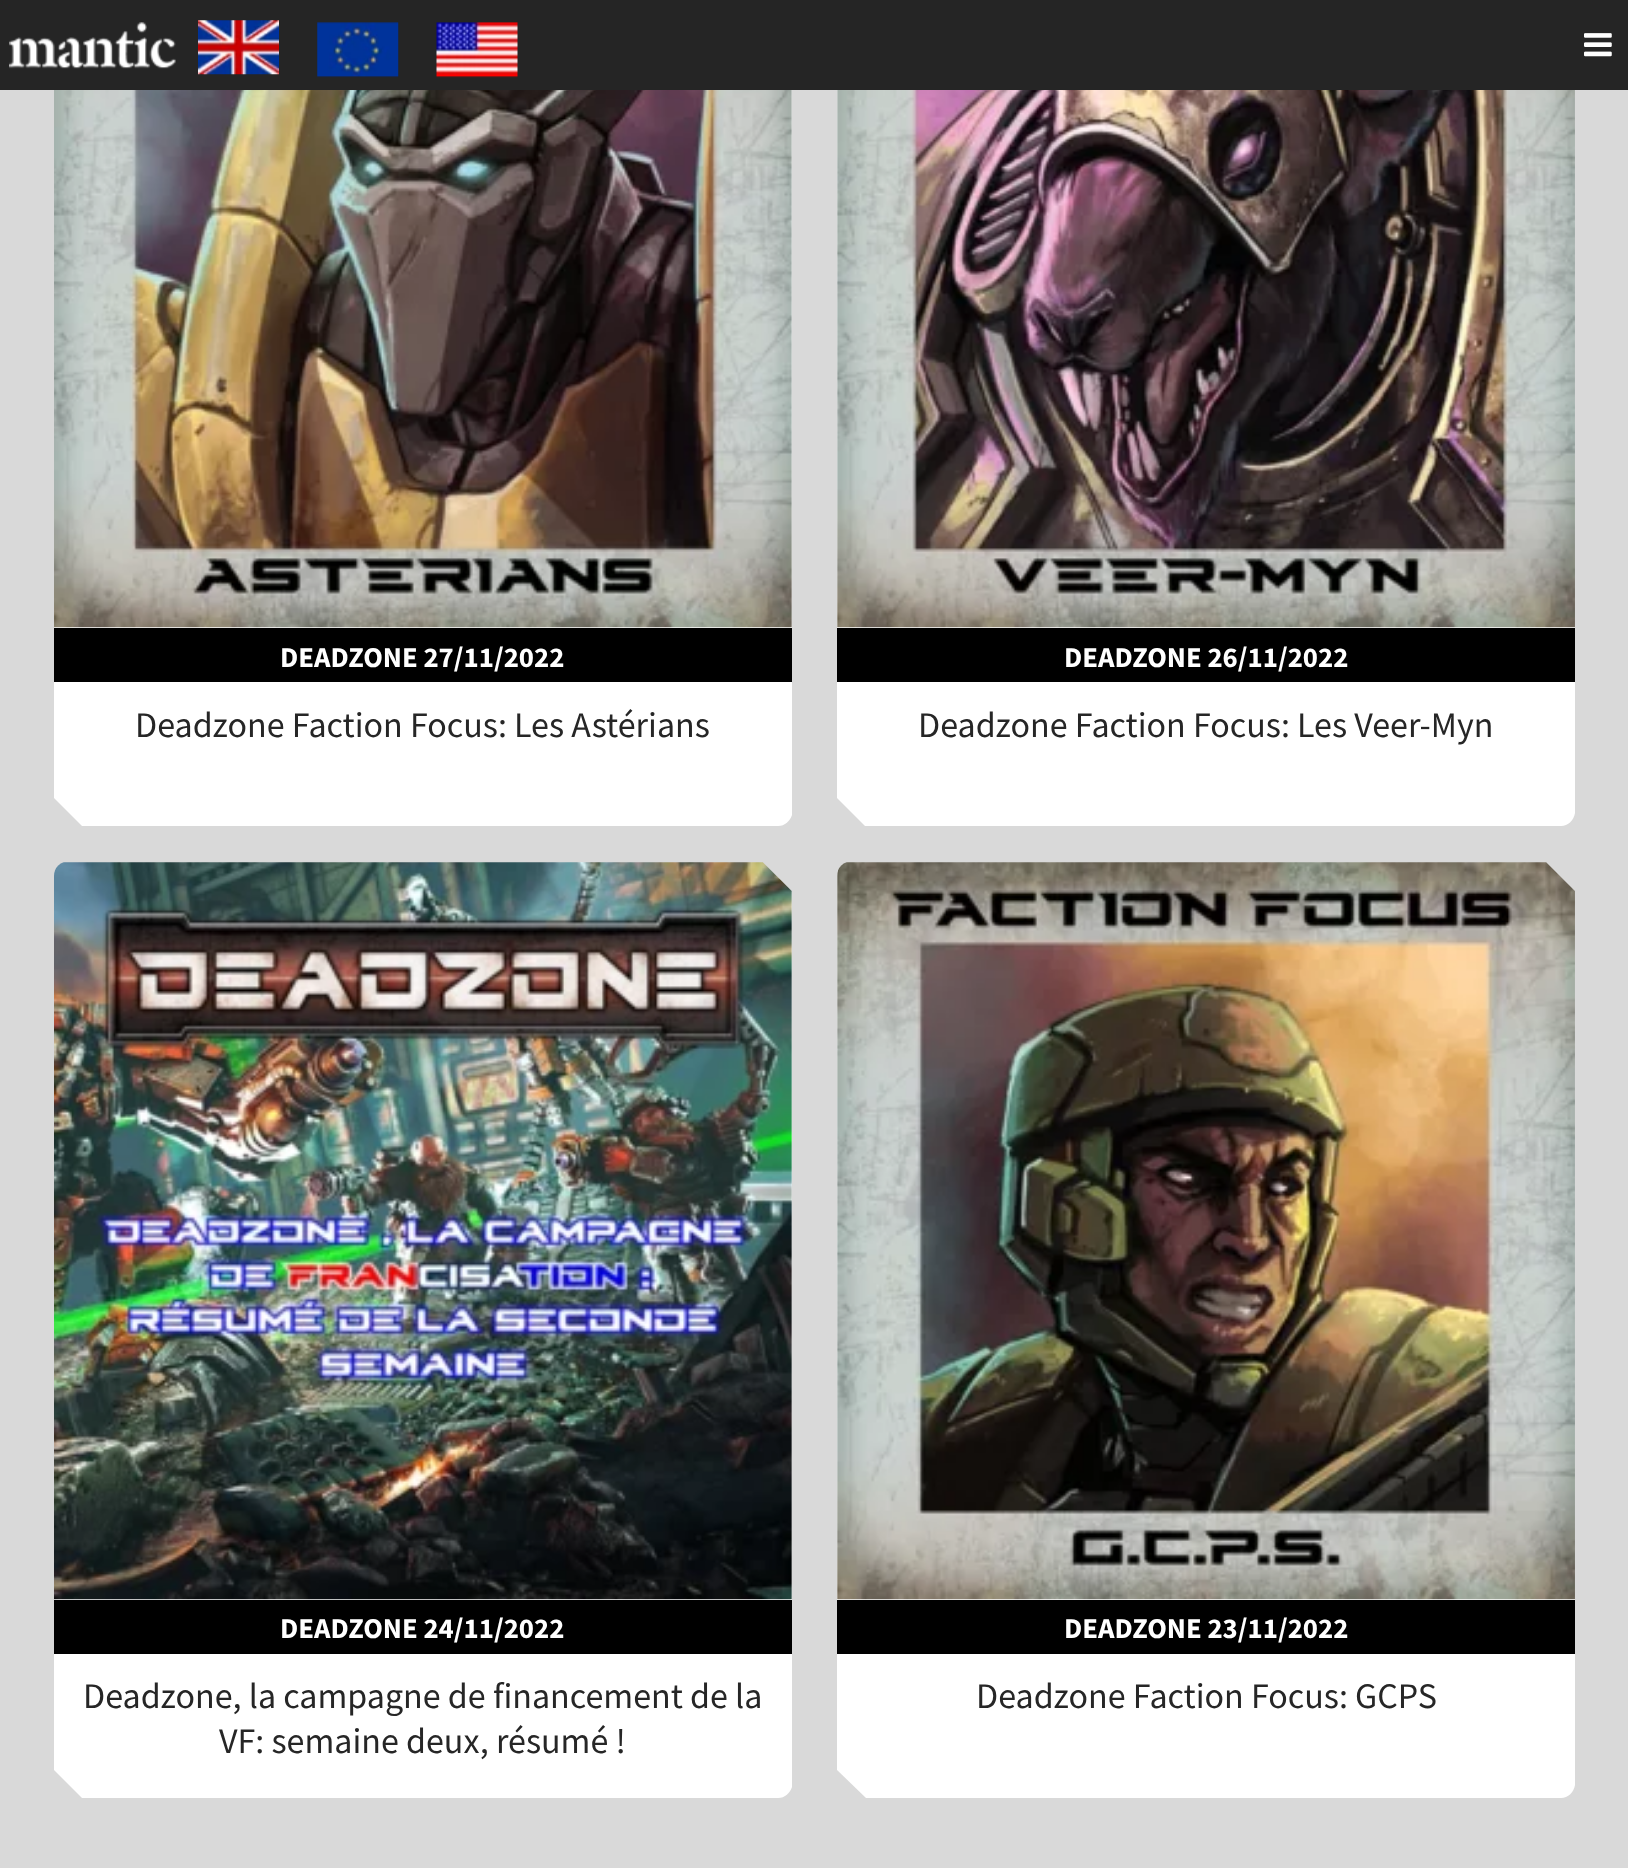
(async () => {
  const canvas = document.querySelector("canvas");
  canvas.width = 1628;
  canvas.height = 1868;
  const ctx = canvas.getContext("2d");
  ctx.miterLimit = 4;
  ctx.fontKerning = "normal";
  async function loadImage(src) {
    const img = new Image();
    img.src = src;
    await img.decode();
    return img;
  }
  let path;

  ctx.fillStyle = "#d9d9d9";
  ctx.fillRect(0, 0, 1628, 1868);
  ctx.fillStyle = "#ffffff";
  path = new Path2D("M68-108C60-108 54-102 54-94V798L82 826H778C785 826 790 821 792 815V-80L764-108Z");
  ctx.fill(path);
  path = new Path2D("M851-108H1547L1575-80V813C1574 820 1568 826 1561 826H865L837 798V-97C839-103 844-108 851-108Z");
  ctx.fill(path);
  ctx.fillStyle = "#252525";
  ctx.fillRect(0, 0, 1628, 90);
  ctx.drawImage(await loadImage("img/1.png"), 9, 22, 167, 47);
  ctx.drawImage(await loadImage("img/2.png"), 198, 20, 81, 55);
  ctx.drawImage(await loadImage("img/3.png"), 317, 22, 82, 56);
  ctx.drawImage(await loadImage("img/4.png"), 436, 22, 82, 56);
  ctx.drawImage(await loadImage("img/5.png"), 1584, 33, 28, 24);
  ctx.drawImage(await loadImage("img/6.png"), 54, 90, 738, 538);
  ctx.fillStyle = "#000000";
  ctx.fillRect(54, 628, 738, 54);
  ctx.drawImage(await loadImage("img/7.png"), 837, 90, 738, 538);
  ctx.fillRect(837, 628, 738, 54);
  ctx.fillStyle = "#ffffff";
  path = new Path2D("M54 876V1770L82 1798H778C785 1798 790 1793 792 1787V892L763 863H63C58 865 54 870 54 876Z");
  ctx.fill(path);
  ctx.drawImage(await loadImage("img/8.png"), 54, 862, 738, 738);
  ctx.fillStyle = "#000000";
  ctx.fillRect(54, 1600, 738, 54);
  ctx.fillStyle = "#ffffff";
  path = new Path2D("M837 873C838 868 842 864 846 863H1546L1575 892V1785C1574 1792 1568 1798 1561 1798H866L837 1770Z");
  ctx.fill(path);
  ctx.drawImage(await loadImage("img/9.png"), 837, 862, 738, 738);
  ctx.fillStyle = "#000000";
  ctx.fillRect(837, 1600, 738, 54);
  ctx.font = "bold 28.75px Source Sans Pro";
  ctx.fillStyle = "#ffffff";
  ctx.fillText("DEADZONE 27/11/2022", 280, 667);
  ctx.font = "36px Source Sans Pro";
  ctx.fillStyle = "#262626";
  ctx.fillText("Deadzone Faction Focus: Les Astérians", 135, 737);
  ctx.font = "bold 28.75px Source Sans Pro";
  ctx.fillStyle = "#ffffff";
  ctx.fillText("DEADZONE 26/11/2022", 1064, 667);
  ctx.font = "36px Source Sans Pro";
  ctx.fillStyle = "#262626";
  ctx.fillText("Deadzone Faction Focus: Les Veer-Myn", 918, 737);
  ctx.font = "bold 28.75px Source Sans Pro";
  ctx.fillStyle = "#ffffff";
  ctx.fillText("DEADZONE 24/11/2022", 280, 1638);
  ctx.font = "36px Source Sans Pro";
  ctx.fillStyle = "#262626";
  ctx.fillText("Deadzone, la campagne de financement de la", 83, 1708);
  ctx.fillText("VF: semaine deux, résumé !", 219, 1753);
  ctx.font = "bold 28.75px Source Sans Pro";
  ctx.fillStyle = "#ffffff";
  ctx.fillText("DEADZONE 23/11/2022", 1064, 1638);
  ctx.font = "36px Source Sans Pro";
  ctx.fillStyle = "#262626";
  ctx.fillText("Deadzone Faction Focus: GCPS", 976, 1708);
})();
